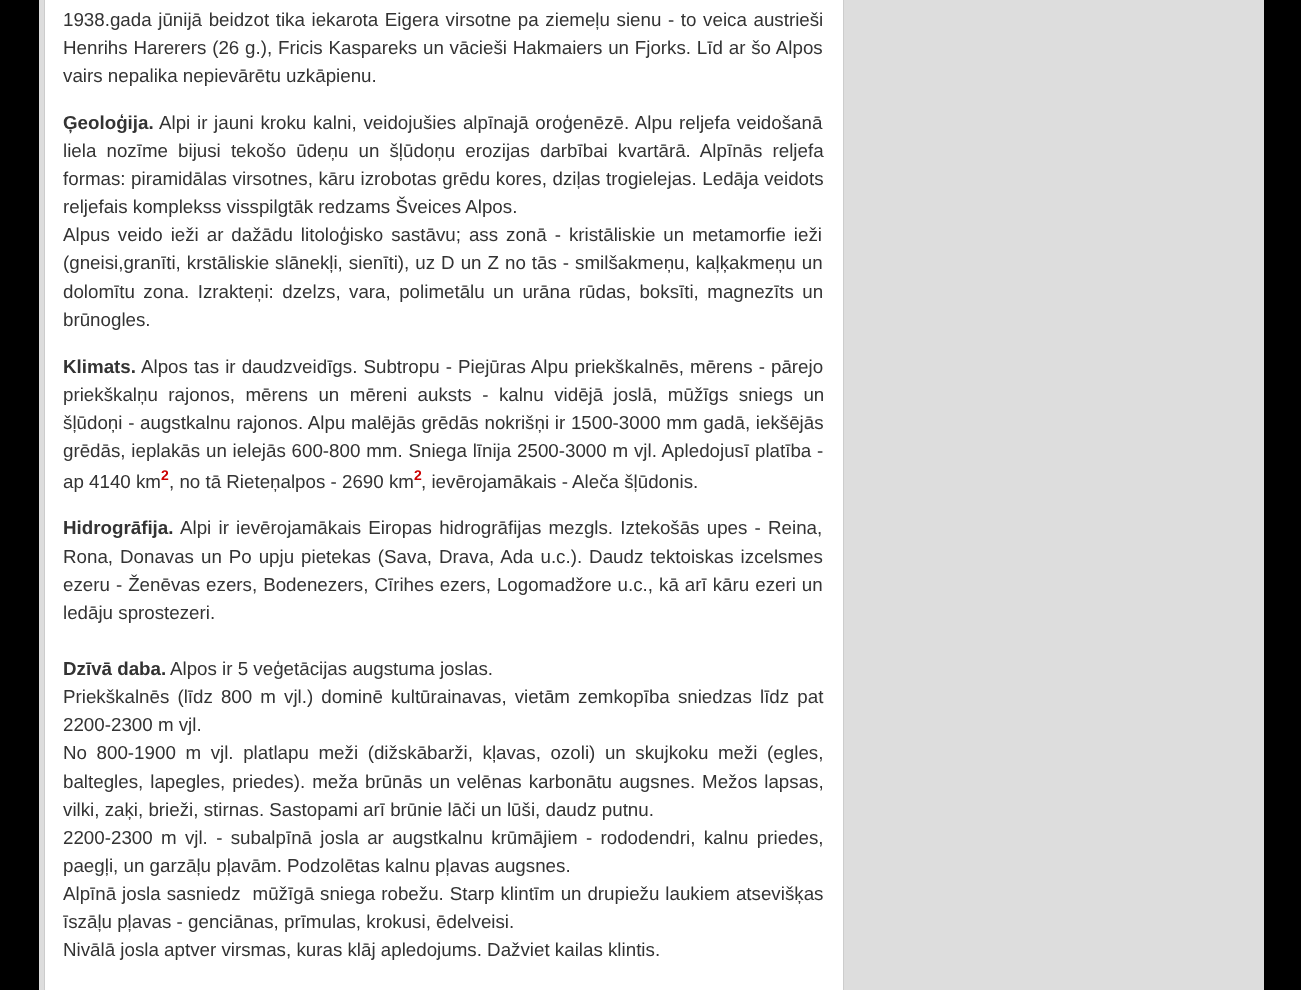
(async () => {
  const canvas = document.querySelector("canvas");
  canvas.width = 1301;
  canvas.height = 990;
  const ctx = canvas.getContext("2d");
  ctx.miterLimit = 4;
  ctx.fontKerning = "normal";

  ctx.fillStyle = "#000000";
  ctx.fillRect(0, 0, 1301, 990);
  for (const [x, y, w, h, color] of [
    [39, 0, 1225, 990, "#dddddd"],
    [45, 0, 798, 990, "#ffffff"],
    [843, 0, 1, 990, "#cccccc"],
    [44, 0, 1, 990, "#cccccc"],
  ]) {
    ctx.fillStyle = color;
    ctx.fillRect(x, y, w, h);
  }
  ctx.wordSpacing = "1.4px";
  ctx.font = "18.75px Liberation Sans";
  ctx.fillStyle = "#333333";
  ctx.fillText("1938.gada jūnijā beidzot tika iekarota Eigera virsotne pa ziemeļu sienu - to veica austrieši", 63, 26);
  ctx.wordSpacing = "0.6px";
  ctx.fillText("Henrihs Harerers (26 g.), Fricis Kaspareks un vācieši Hakmaiers un Fjorks. Līd ar šo Alpos", 63, 54);
  ctx.wordSpacing = "0px";
  ctx.fillText("vairs nepalika nepievārētu uzkāpienu.", 63, 82);
  ctx.font = "bold 18.75px Liberation Sans";
  ctx.fillText("Ģeoloģija.", 63, 129);
  ctx.wordSpacing = "1.5px";
  ctx.font = "18.75px Liberation Sans";
  ctx.fillText("Alpi ir jauni kroku kalni, veidojušies alpīnajā oroģenēzē. Alpu reljefa veidošanā", 159, 129);
  ctx.wordSpacing = "4.9px";
  ctx.fillText("liela nozīme bijusi tekošo ūdeņu un šļūdoņu erozijas darbībai kvartārā. Alpīnās reljefa", 63, 157);
  ctx.wordSpacing = "0.4px";
  ctx.fillText("formas: piramidālas virsotnes, kāru izrobotas grēdu kores, dziļas trogielejas. Ledāja veidots", 63, 185);
  ctx.wordSpacing = "0px";
  ctx.fillText("reljefais komplekss visspilgtāk redzams Šveices Alpos.", 63, 213);
  ctx.wordSpacing = "2.75px";
  ctx.fillText("Alpus veido ieži ar dažādu litoloģisko sastāvu; ass zonā - kristāliskie un metamorfie ieži", 63, 241);
  ctx.wordSpacing = "0.8px";
  ctx.fillText("(gneisi,granīti, krstāliskie slānekļi, sienīti), uz D un Z no tās - smilšakmeņu, kaļķakmeņu un", 63, 269);
  ctx.wordSpacing = "3.25px";
  ctx.fillText("dolomītu zona. Izrakteņi: dzelzs, vara, polimetālu un urāna rūdas, boksīti, magnezīts un", 63, 298);
  ctx.wordSpacing = "0px";
  ctx.fillText("brūnogles.", 63, 326);
  ctx.font = "bold 18.75px Liberation Sans";
  ctx.fillText("Klimats.", 63, 373);
  ctx.wordSpacing = "0.9px";
  ctx.font = "18.75px Liberation Sans";
  ctx.fillText("Alpos tas ir daudzveidīgs. Subtropu - Piejūras Alpu priekškalnēs, mērens - pārejo", 141, 373);
  ctx.wordSpacing = "5.25px";
  ctx.fillText("priekškalņu rajonos, mērens un mēreni auksts - kalnu vidējā joslā, mūžīgs sniegs un", 63, 401);
  ctx.wordSpacing = "0.5px";
  ctx.fillText("šļūdoņi - augstkalnu rajonos. Alpu malējās grēdās nokrišņi ir 1500-3000 mm gadā, iekšējās", 63, 429);
  ctx.wordSpacing = "0.6px";
  ctx.fillText("grēdās, ieplakās un ielejās 600-800 mm. Sniega līnija 2500-3000 m vjl. Apledojusī platība -", 63, 457);
  ctx.wordSpacing = "0px";
  ctx.fillText("ap 4140 km", 63, 488);
  ctx.font = "bold 14px Liberation Sans";
  ctx.fillStyle = "#cc0000";
  ctx.fillText("2", 161, 480);
  ctx.font = "18.75px Liberation Sans";
  ctx.fillStyle = "#333333";
  ctx.fillText(", no tā Rieteņalpos - 2690 km", 169, 488);
  ctx.font = "bold 14px Liberation Sans";
  ctx.fillStyle = "#cc0000";
  ctx.fillText("2", 414, 480);
  ctx.font = "18.75px Liberation Sans";
  ctx.fillStyle = "#333333";
  ctx.fillText(", ievērojamākais - Aleča šļūdonis.", 421, 488);
  ctx.font = "bold 18.75px Liberation Sans";
  ctx.fillText("Hidrogrāfija.", 63, 534);
  ctx.wordSpacing = "2px";
  ctx.font = "18.75px Liberation Sans";
  ctx.fillText("Alpi ir ievērojamākais Eiropas hidrogrāfijas mezgls. Iztekošās upes - Reina,", 180, 534);
  ctx.wordSpacing = "1.75px";
  ctx.fillText("Rona, Donavas un Po upju pietekas (Sava, Drava, Ada u.c.). Daudz tektoiskas izcelsmes", 63, 563);
  ctx.wordSpacing = "0.8px";
  ctx.fillText("ezeru - Ženēvas ezers, Bodenezers, Cīrihes ezers, Logomadžore u.c., kā arī kāru ezeri un", 63, 591);
  ctx.wordSpacing = "0px";
  ctx.fillText("ledāju sprostezeri.", 63, 619);
  ctx.font = "bold 18.75px Liberation Sans";
  ctx.fillText("Dzīvā daba.", 63, 675);
  ctx.font = "18.75px Liberation Sans";
  ctx.fillText("Alpos ir 5 veģetācijas augstuma joslas.", 170, 675);
  ctx.wordSpacing = "2.9px";
  ctx.fillText("Priekškalnēs (līdz 800 m vjl.) dominē kultūrainavas, vietām zemkopība sniedzas līdz pat", 63, 703);
  ctx.wordSpacing = "0px";
  ctx.fillText("2200-2300 m vjl.", 63, 731);
  ctx.wordSpacing = "4.4px";
  ctx.fillText("No 800-1900 m vjl. platlapu meži (dižskābarži, kļavas, ozoli) un skujkoku meži (egles,", 63, 759);
  ctx.wordSpacing = "1.75px";
  ctx.fillText("baltegles, lapegles, priedes). meža brūnās un velēnas karbonātu augsnes. Mežos lapsas,", 63, 788);
  ctx.wordSpacing = "0px";
  ctx.fillText("vilki, zaķi, brieži, stirnas. Sastopami arī brūnie lāči un lūši, daudz putnu.", 63, 816);
  ctx.wordSpacing = "3.1px";
  ctx.fillText("2200-2300 m vjl. - subalpīnā josla ar augstkalnu krūmājiem - rododendri, kalnu priedes,", 63, 844);
  ctx.wordSpacing = "0px";
  ctx.fillText("paegļi, un garzāļu pļavām. Podzolētas kalnu pļavas augsnes.", 63, 872);
  ctx.wordSpacing = "0.75px";
  ctx.fillText("Alpīnā josla sasniedz  mūžīgā sniega robežu. Starp klintīm un drupiežu laukiem atsevišķas", 63, 900);
  ctx.wordSpacing = "0px";
  ctx.fillText("īszāļu pļavas - genciānas, prīmulas, krokusi, ēdelveisi.", 63, 928);
  ctx.fillText("Nivālā josla aptver virsmas, kuras klāj apledojums. Dažviet kailas klintis.", 63, 956);
})();
